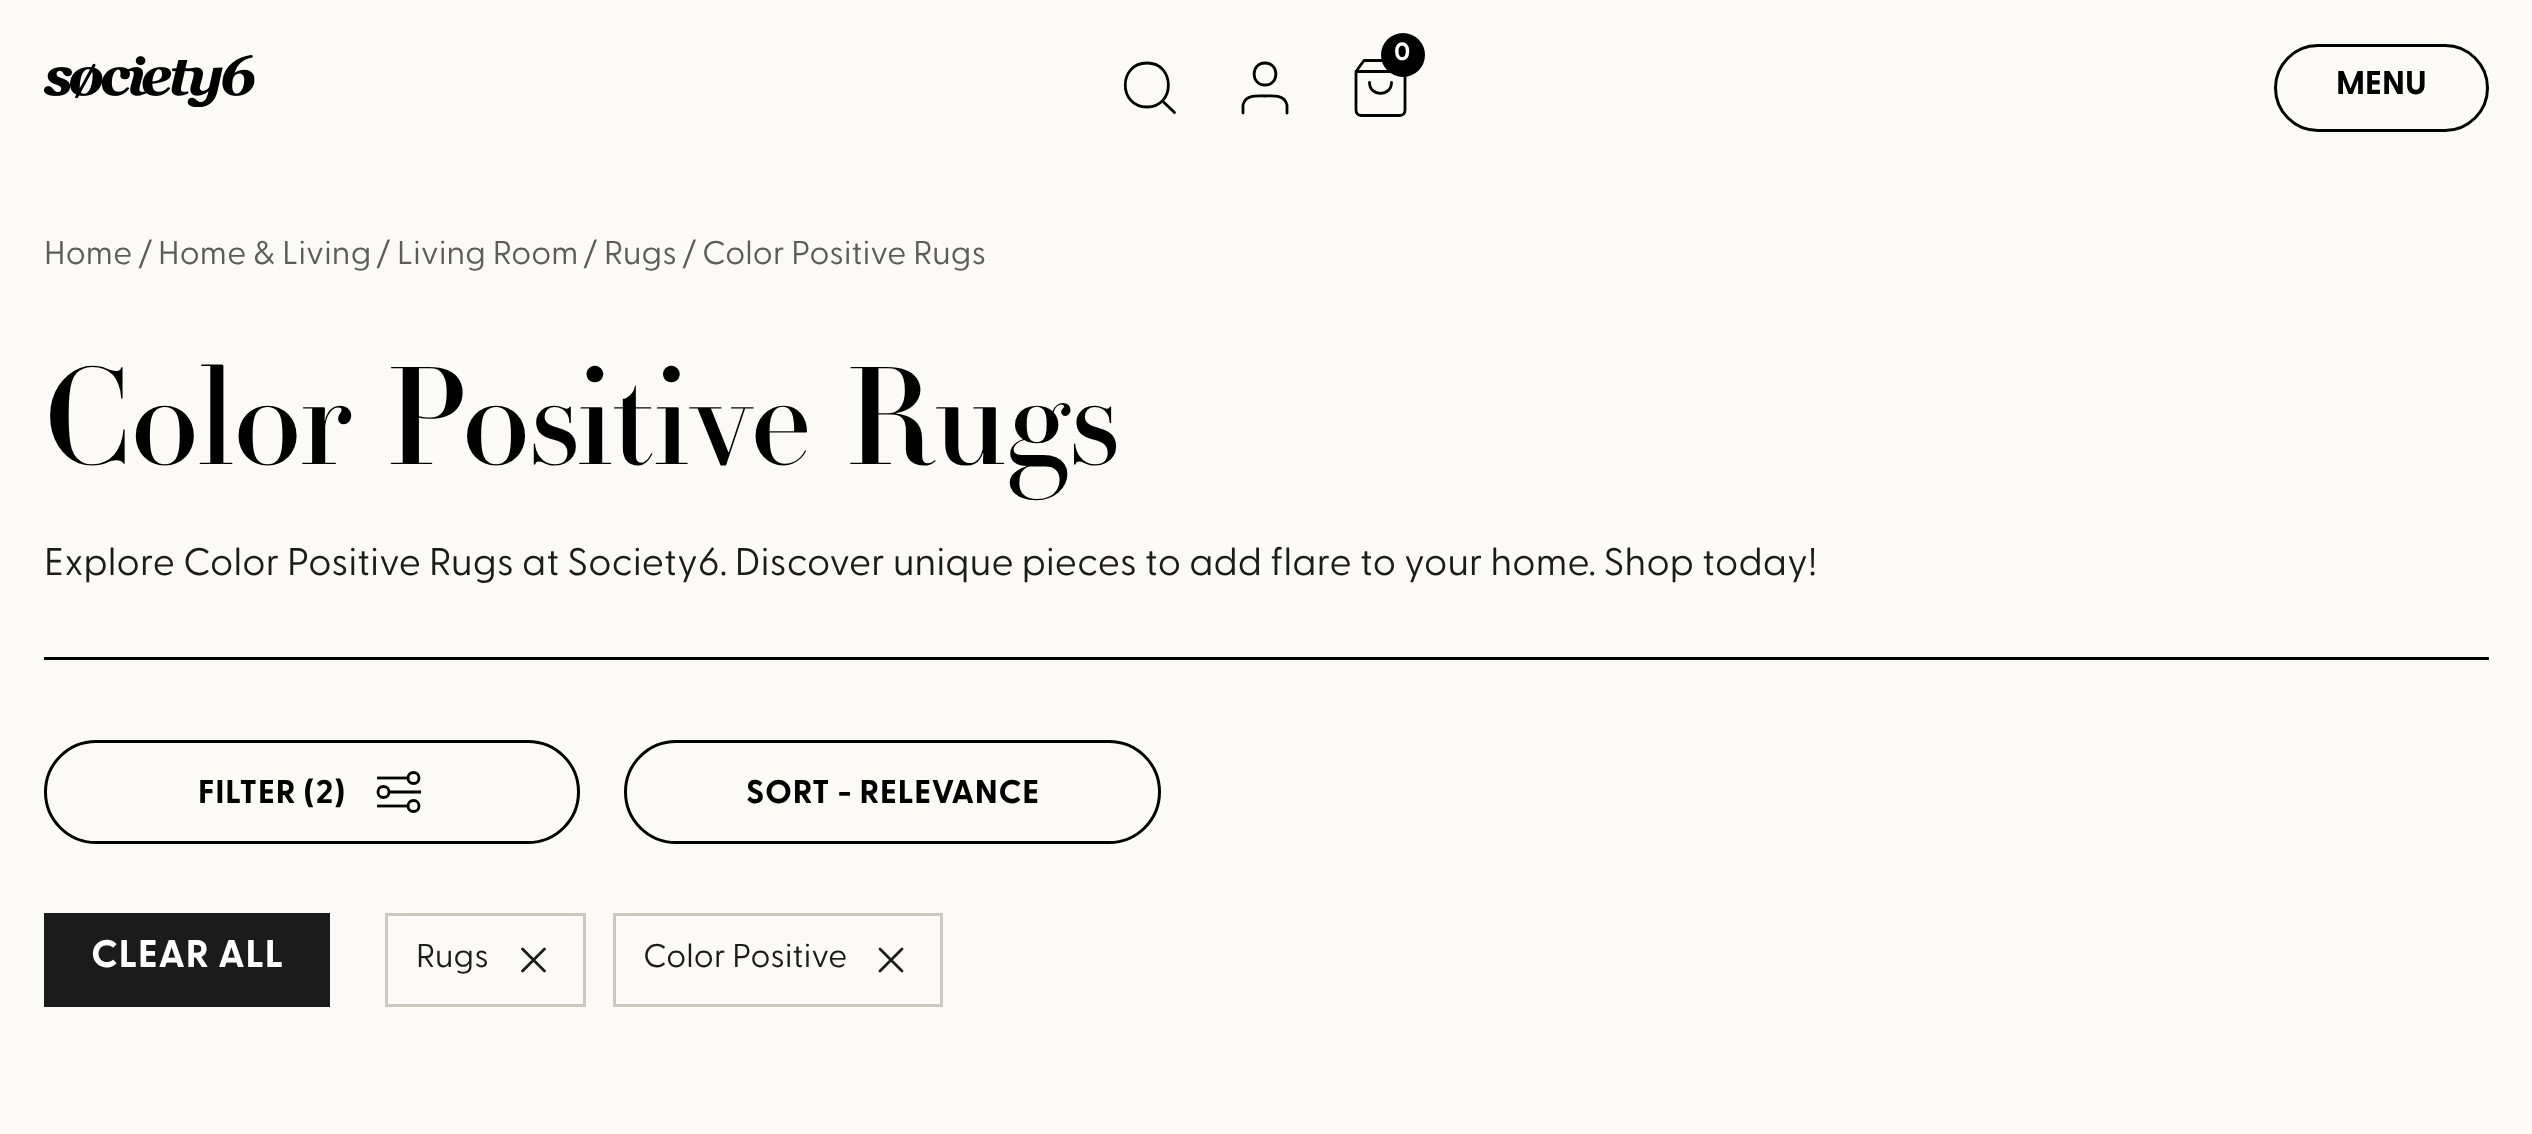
(async () => {
  const canvas = document.querySelector("canvas");
  canvas.width = 2532;
  canvas.height = 1134;
  const ctx = canvas.getContext("2d");
  ctx.miterLimit = 4;
  ctx.fontKerning = "normal";
  async function loadImage(src) {
    const img = new Image();
    img.src = src;
    await img.decode();
    return img;
  }
  let path;

  ctx.fillStyle = "#fbfaf6";
  ctx.fillRect(0, 0, 2532, 1134);
  path = new Path2D("M1364 60.5L1356 71.5V110C1356 113 1358 115.5 1361 115.5H1400C1403 115.5 1405 113 1405 110V71.5L1397 60.5ZM1356 71.5H1405M1391.5 82.5C1391.5 97 1369.5 97 1369.5 82.5");
  ctx.strokeStyle = "#000000";
  ctx.lineWidth = 2.8;
  ctx.lineCap = "round";
  ctx.lineJoin = "round";
  ctx.stroke(path);
  ctx.fillStyle = "#000000";
  ctx.beginPath();
  ctx.arc(1403, 55, 22, 0, Math.PI * 2);
  ctx.fill();
  path = new Path2D("M1147 107C1175.5 107 1175.5 63 1147 63C1118 63 1118 107 1147 107ZM1174.5 112.5L1162.5 101");
  ctx.stroke(path);
  path = new Path2D("M1287 113V105C1284.5 94.5 1273 96 1265 96C1257 96 1245.5 94.5 1243 105V113M1265 85C1279.5 85 1279.5 63 1265 63C1250.5 63 1250.5 85 1265 85Z");
  ctx.stroke(path);
  ctx.drawImage(await loadImage("img/1.png"), 44, 55, 211, 52);
  ctx.beginPath();
  ctx.roundRect(2275.5, 45.5, 212, 85, 42.5);
  ctx.lineWidth = 3;
  ctx.lineJoin = "miter";
  ctx.stroke();
  ctx.fillRect(44, 657, 2445, 3);
  ctx.beginPath();
  ctx.roundRect(45.5, 741.5, 533, 101, 50.5);
  ctx.stroke();
  path = new Path2D("M377 778H407");
  ctx.lineWidth = 2.8;
  ctx.lineCap = "butt";
  ctx.stroke(path);
  ctx.beginPath();
  ctx.arc(413.5, 778, 5.5, 0, Math.PI * 2);
  ctx.stroke();
  path = new Path2D("M377 806H408.5");
  ctx.stroke(path);
  ctx.beginPath();
  ctx.arc(413.5, 806, 5.5, 0, Math.PI * 2);
  ctx.stroke();
  path = new Path2D("M388 792H421");
  ctx.stroke(path);
  ctx.beginPath();
  ctx.arc(383.5, 792, 5.5, 0, Math.PI * 2);
  ctx.stroke();
  ctx.beginPath();
  ctx.roundRect(625.5, 741.5, 534, 101, 50.5);
  ctx.lineWidth = 3;
  ctx.stroke();
  ctx.fillStyle = "#1b1b1b";
  ctx.fillRect(44, 913, 286, 94);
  ctx.strokeStyle = "#ccc7be";
  ctx.strokeRect(386.5, 914.5, 198, 91);
  path = new Path2D("M544.5 949L522.5 971M522.5 949L544.5 971");
  ctx.strokeStyle = "#1b1b1b";
  ctx.lineWidth = 2.8;
  ctx.lineCap = "round";
  ctx.lineJoin = "round";
  ctx.stroke(path);
  ctx.strokeStyle = "#ccc7be";
  ctx.lineWidth = 3;
  ctx.lineJoin = "miter";
  ctx.strokeRect(614.5, 914.5, 327, 91);
  path = new Path2D("M902 949L880 971M880 949L902 971");
  ctx.strokeStyle = "#1b1b1b";
  ctx.lineWidth = 2.8;
  ctx.lineJoin = "round";
  ctx.stroke(path);
  ctx.font = "bold 25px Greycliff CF";
  ctx.fillStyle = "#ffffff";
  ctx.fillText("0", 1394, 60);
  ctx.font = "bold 33px Greycliff CF";
  ctx.fillStyle = "#000000";
  ctx.fillText("MENU", 2336, 94);
  ctx.letterSpacing = "0.2px";
  ctx.font = "33px Greycliff CF";
  ctx.fillStyle = "#5c5c5c";
  for (const [text, x, y] of [
    ["Home", 44, 264],
    ["/", 138, 264],
    ["Home & Living", 158, 264],
    ["/", 376, 264],
    ["Living Room", 397, 264],
    ["/", 583, 264],
    ["Rugs", 604, 264],
    ["/", 682, 264],
    ["Color Positive Rugs", 702, 264],
  ]) {
    ctx.fillText(text, x, y);
  }
  ctx.letterSpacing = "-1.3px";
  ctx.font = "132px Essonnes";
  ctx.fillStyle = "#000000";
  ctx.fillText("Color Positive Rugs", 44, 464);
  ctx.letterSpacing = "0.19px";
  ctx.font = "38.5px Greycliff CF";
  ctx.fillStyle = "#1b1b1b";
  ctx.fillText("Explore Color Positive Rugs at Society6. Discover unique pieces to add flare to your home. Shop today!", 44, 575);
  ctx.letterSpacing = "0.7px";
  ctx.font = "bold 33px Greycliff CF";
  ctx.fillStyle = "#000000";
  ctx.fillText("FILTER (2)", 198, 803);
  ctx.fillText("SORT - RELEVANCE", 746, 803);
  ctx.letterSpacing = "0.75px";
  ctx.font = "bold 38.5px Greycliff CF";
  ctx.fillStyle = "#ffffff";
  ctx.fillText("CLEAR ALL", 91, 967);
  ctx.letterSpacing = "0.2px";
  ctx.font = "33px Greycliff CF";
  ctx.fillStyle = "#1b1b1b";
  ctx.fillText("Rugs", 416, 967);
  ctx.fillText("Color Positive", 643, 967);
})();
